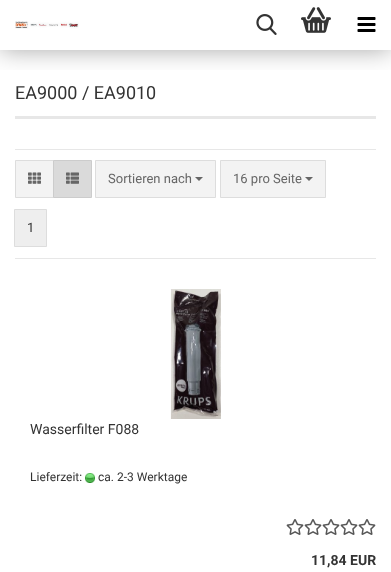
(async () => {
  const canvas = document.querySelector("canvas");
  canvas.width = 391;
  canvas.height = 572;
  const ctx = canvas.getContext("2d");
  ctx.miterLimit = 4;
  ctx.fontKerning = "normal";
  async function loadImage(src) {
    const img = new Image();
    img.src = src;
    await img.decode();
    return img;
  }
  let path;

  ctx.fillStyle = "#ffffff";
  ctx.fillRect(0, 0, 391, 572);
  ctx.save();
  ctx.beginPath();
  ctx.rect(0, 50, 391, 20);
  ctx.clip();
  ctx.fillStyle = "rgba(0, 0, 0, 0.35)";
  ctx.filter = "blur(12.5px)";
  ctx.beginPath();
  ctx.rect(0, 0, 391, 50);
  ctx.fill();
  ctx.filter = "none";
  ctx.restore();
  ctx.drawImage(await loadImage("img/1.png"), 15, 21, 64, 8);
  ctx.drawImage(await loadImage("img/2.png"), 256, 14, 21, 21);
  ctx.drawImage(await loadImage("img/3.png"), 301, 7, 30, 26);
  ctx.drawImage(await loadImage("img/4.png"), 357, 17, 19, 15);
  for (const [x, y, w, h, color] of [
    [15, 116, 361, 3, "#e7e7e7"],
    [15, 149, 361, 1, "#e7e7e7"],
    [15, 258, 361, 1, "#e7e7e7"],
  ]) {
    ctx.fillStyle = color;
    ctx.fillRect(x, y, w, h);
  }
  ctx.fillStyle = "#f3f3f3";
  ctx.beginPath();
  ctx.rect(15.5, 160.5, 38, 37);
  ctx.fill();
  ctx.strokeStyle = "#dddddd";
  ctx.stroke();
  ctx.drawImage(await loadImage("img/5.png"), 28, 172, 13, 12);
  ctx.fillStyle = "#dadada";
  ctx.beginPath();
  ctx.rect(53.5, 160.5, 38, 37);
  ctx.fill();
  ctx.strokeStyle = "#cccccc";
  ctx.stroke();
  ctx.drawImage(await loadImage("img/6.png"), 66, 172, 13, 12);
  ctx.fillStyle = "#f3f3f3";
  ctx.beginPath();
  ctx.rect(95.5, 160.5, 120, 37);
  ctx.fill();
  ctx.strokeStyle = "#dddddd";
  ctx.stroke();
  ctx.fillStyle = "#666666";
  path = new Path2D("M195 177H203L199 181Z");
  ctx.fill(path);
  ctx.fillStyle = "#f3f3f3";
  ctx.beginPath();
  ctx.rect(220.5, 160.5, 105, 37);
  ctx.fill();
  ctx.stroke();
  ctx.fillStyle = "#666666";
  path = new Path2D("M305 177H313L309 181Z");
  ctx.fill(path);
  ctx.fillStyle = "#eeeeee";
  ctx.beginPath();
  ctx.rect(14.5, 209.5, 32, 37);
  ctx.fill();
  ctx.stroke();
  ctx.drawImage(await loadImage("img/7.png"), 170, 289, 51, 130);
  ctx.drawImage(await loadImage("img/8.png"), 85, 473, 10, 10);
  ctx.drawImage(await loadImage("img/9.png"), 286, 519, 18, 16);
  ctx.drawImage(await loadImage("img/9.png"), 304, 519, 18, 16);
  ctx.drawImage(await loadImage("img/9.png"), 322, 519, 18, 16);
  ctx.drawImage(await loadImage("img/9.png"), 340, 519, 18, 16);
  ctx.drawImage(await loadImage("img/9.png"), 358, 519, 18, 16);
  ctx.font = "18px Roboto";
  ctx.fillStyle = "#333333";
  ctx.fillText("EA9000 / EA9010", 15, 99);
  ctx.font = "13px Roboto";
  ctx.fillStyle = "#666666";
  ctx.fillText("Sortieren nach", 108, 183);
  ctx.fillText("16 pro Seite", 233, 183);
  ctx.fillStyle = "#333333";
  ctx.fillText("1", 27, 232);
  ctx.font = "14px Roboto";
  ctx.fillText("Wasserfilter F088", 30, 434);
  ctx.font = "12px Roboto";
  ctx.fillText("Lieferzeit:", 30, 481);
  ctx.fillText("ca. 2-3 Werktage", 98, 481);
  ctx.font = "bold 14px Roboto";
  ctx.fillText("11,84 EUR", 311, 565);
})();
